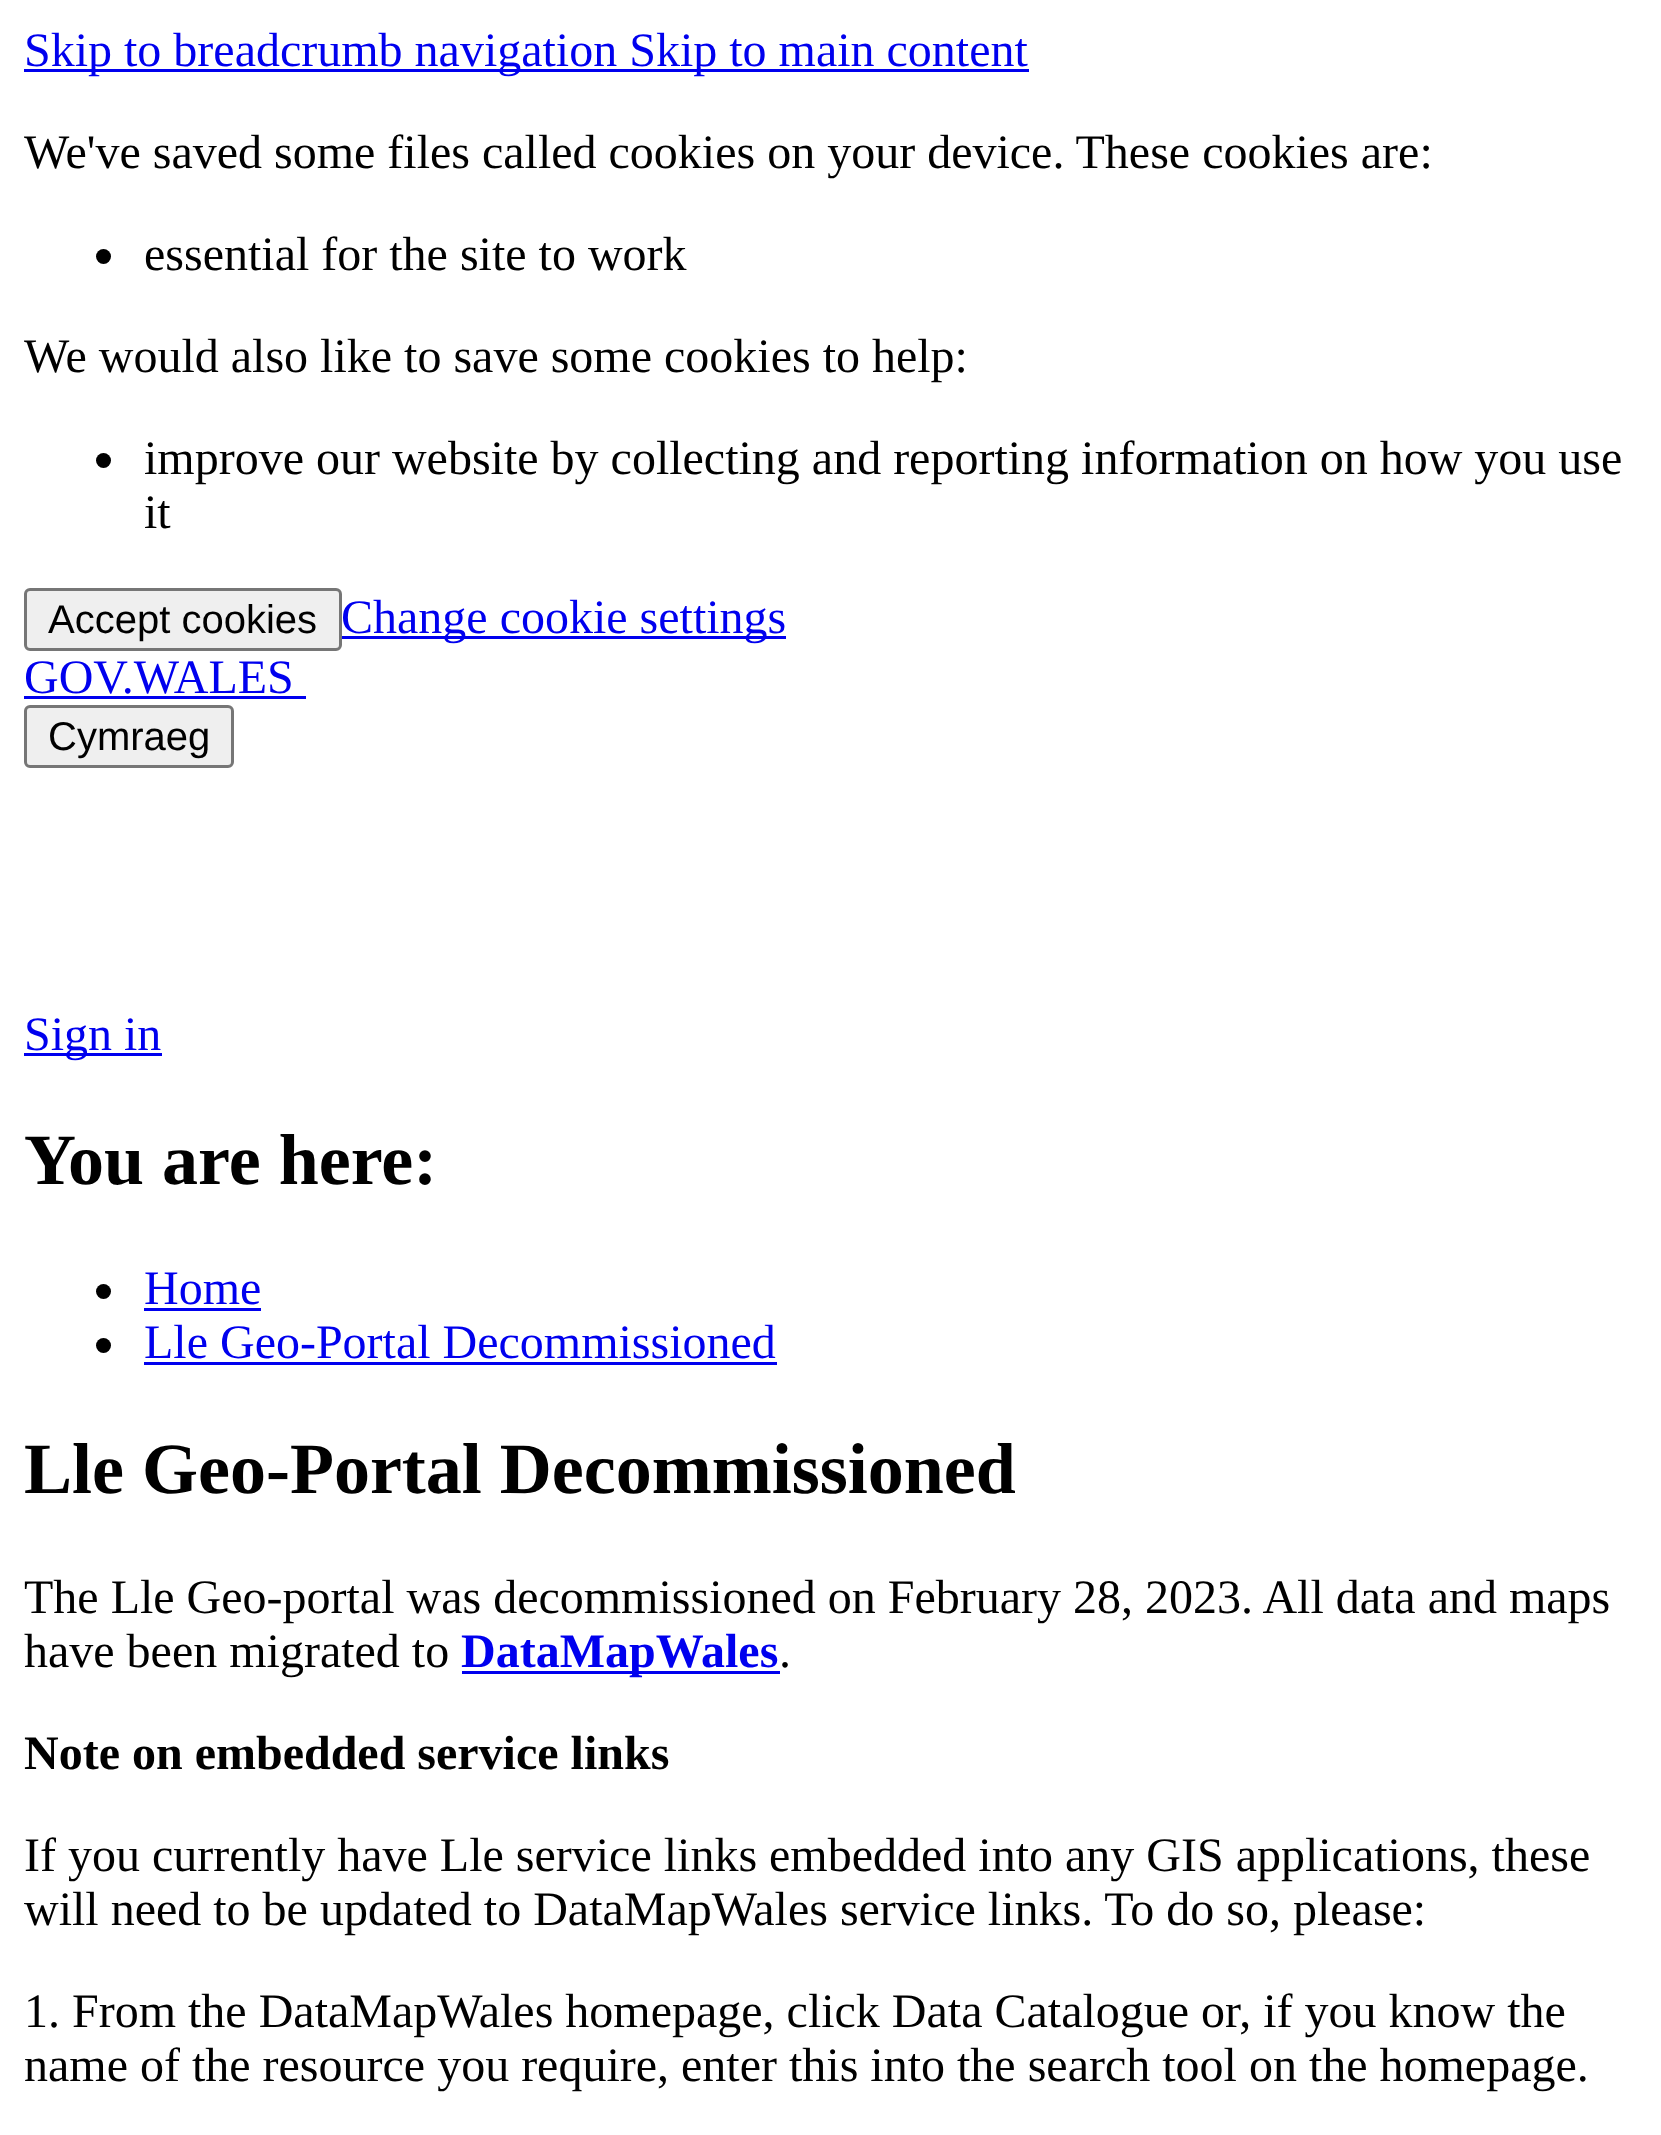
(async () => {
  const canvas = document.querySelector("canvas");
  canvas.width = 1661;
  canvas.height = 2135;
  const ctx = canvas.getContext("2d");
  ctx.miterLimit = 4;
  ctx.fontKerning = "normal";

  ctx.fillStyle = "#ffffff";
  ctx.fillRect(0, 0, 1661, 2135);
  ctx.fillStyle = "#0000ee";
  ctx.fillRect(24, 69, 1005, 3);
  ctx.fillStyle = "#000000";
  ctx.beginPath();
  ctx.arc(103.5, 256.5, 7.5, 0, Math.PI * 2);
  ctx.fill();
  ctx.beginPath();
  ctx.arc(103.5, 460.5, 7.5, 0, Math.PI * 2);
  ctx.fill();
  ctx.fillStyle = "#efefef";
  ctx.beginPath();
  ctx.roundRect(25.5, 589.5, 315, 60, 4.5);
  ctx.fill();
  ctx.strokeStyle = "#767676";
  ctx.lineWidth = 3;
  ctx.stroke();
  ctx.fillStyle = "#0000ee";
  ctx.fillRect(342, 636, 444, 3);
  ctx.fillRect(24, 696, 282, 3);
  ctx.fillStyle = "#efefef";
  ctx.beginPath();
  ctx.roundRect(25.5, 706.5, 207, 60, 4.5);
  ctx.fill();
  ctx.stroke();
  ctx.fillStyle = "#0000ee";
  ctx.fillRect(24, 1053, 138, 3);
  ctx.fillStyle = "#000000";
  ctx.beginPath();
  ctx.arc(103.5, 1291.5, 7.5, 0, Math.PI * 2);
  ctx.fill();
  ctx.fillStyle = "#0000ee";
  ctx.fillRect(144, 1308, 117, 3);
  ctx.fillStyle = "#000000";
  ctx.beginPath();
  ctx.arc(103.5, 1345.5, 7.5, 0, Math.PI * 2);
  ctx.fill();
  ctx.fillStyle = "#0000ee";
  ctx.fillRect(144, 1362, 633, 3);
  ctx.fillRect(462, 1671, 318, 3);
  ctx.font = "48px Liberation Serif";
  ctx.fillText("Skip to breadcrumb navigation Skip to main content", 24, 66);
  ctx.fillStyle = "#000000";
  for (const [text, x, y] of [
    ["We've saved some files called cookies on your device. These cookies are:", 24, 168],
    ["essential for the site to work", 144, 270],
    ["We would also like to save some cookies to help:", 24, 372],
    ["improve our website by collecting and reporting information on how you use", 144, 474],
    ["it", 144, 528],
  ]) {
    ctx.fillText(text, x, y);
  }
  ctx.font = "40px Liberation Sans";
  ctx.fillText("Accept cookies", 48, 633);
  ctx.font = "48px Liberation Serif";
  ctx.fillStyle = "#0000ee";
  ctx.fillText("Change cookie settings", 341, 633);
  ctx.fillText("GOV.WALES", 24, 693);
  ctx.font = "40px Liberation Sans";
  ctx.fillStyle = "#000000";
  ctx.fillText("Cymraeg", 48, 750);
  ctx.font = "48px Liberation Serif";
  ctx.fillStyle = "#0000ee";
  ctx.fillText("Sign in", 24, 1050);
  ctx.font = "bold 72px Liberation Serif";
  ctx.fillStyle = "#000000";
  ctx.fillText("You are here:", 24, 1184);
  ctx.font = "48px Liberation Serif";
  ctx.fillStyle = "#0000ee";
  ctx.fillText("Home", 144, 1304);
  ctx.fillText("Lle Geo-Portal Decommissioned", 144, 1358);
  ctx.font = "bold 72px Liberation Serif";
  ctx.fillStyle = "#000000";
  ctx.fillText("Lle Geo-Portal Decommissioned", 24, 1493);
  ctx.font = "48px Liberation Serif";
  ctx.fillText("The Lle Geo-portal was decommissioned on February 28, 2023. All data and maps", 24, 1613);
  ctx.fillText("have been migrated to", 24, 1667);
  ctx.font = "bold 48px Liberation Serif";
  ctx.fillStyle = "#0000ee";
  ctx.fillText("DataMapWales", 461, 1667);
  ctx.font = "48px Liberation Serif";
  ctx.fillStyle = "#000000";
  ctx.fillText(".", 779, 1667);
  ctx.font = "bold 48px Liberation Serif";
  ctx.fillText("Note on embedded service links", 24, 1769);
  ctx.font = "48px Liberation Serif";
  for (const [text, x, y] of [
    ["If you currently have Lle service links embedded into any GIS applications, these", 24, 1871],
    ["will need to be updated to DataMapWales service links. To do so, please:", 24, 1925],
    ["1. From the DataMapWales homepage, click Data Catalogue or, if you know the", 24, 2027],
    ["name of the resource you require, enter this into the search tool on the homepage.", 24, 2081],
  ]) {
    ctx.fillText(text, x, y);
  }
})();
